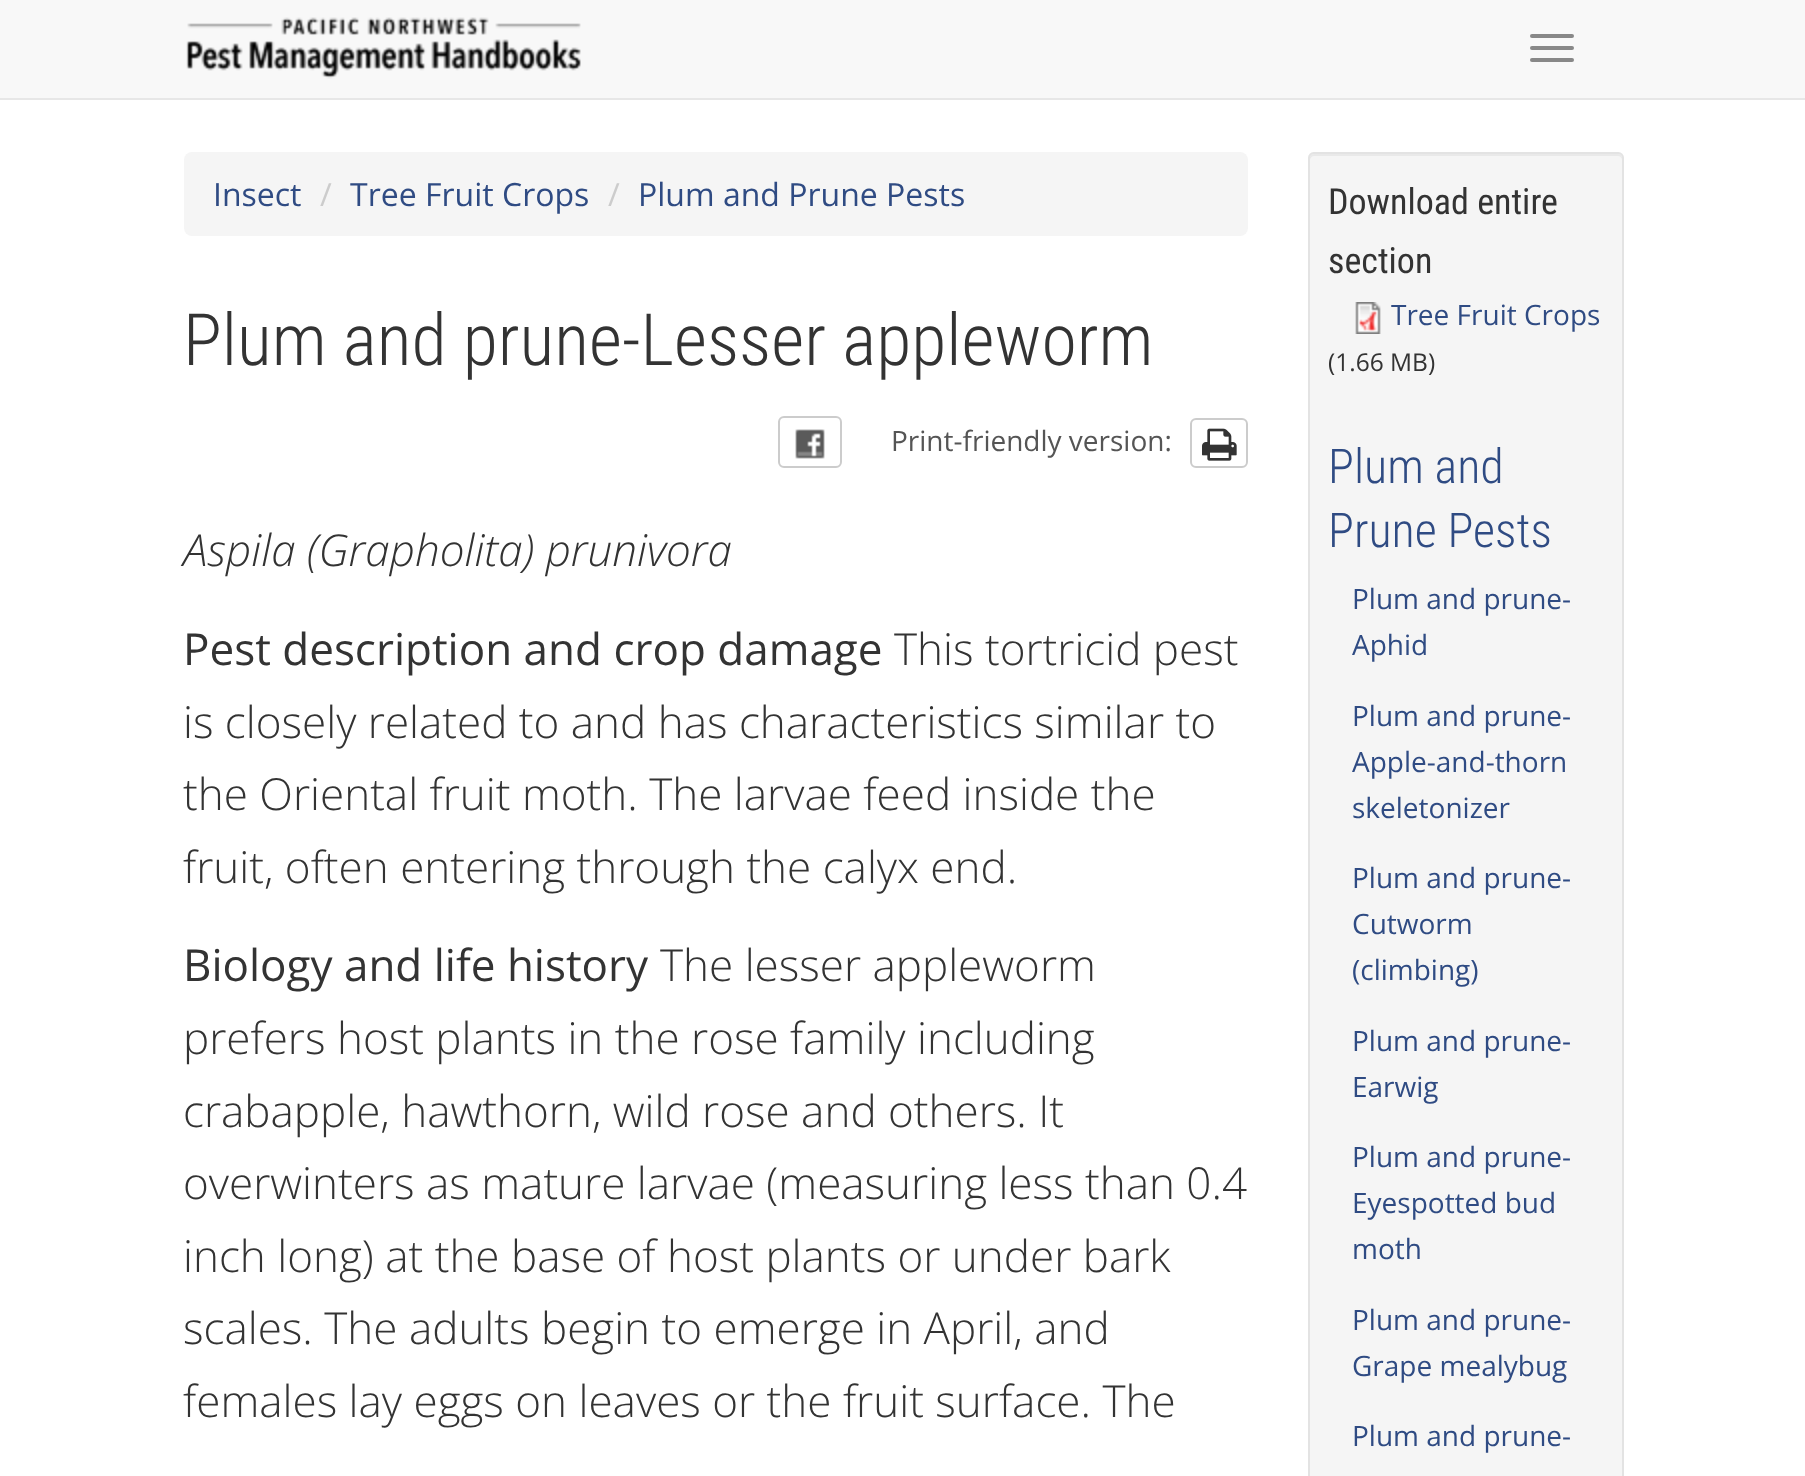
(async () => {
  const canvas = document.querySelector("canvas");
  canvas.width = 1805;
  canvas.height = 1476;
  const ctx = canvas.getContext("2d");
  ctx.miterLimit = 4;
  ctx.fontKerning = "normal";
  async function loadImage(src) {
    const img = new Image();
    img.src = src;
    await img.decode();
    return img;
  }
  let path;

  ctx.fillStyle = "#ffffff";
  ctx.fillRect(0, 0, 1805, 1476);
  ctx.fillStyle = "#f8f8f8";
  ctx.fillRect(0, 0, 1805, 98);
  ctx.fillStyle = "#e7e7e7";
  ctx.fillRect(0, 98, 1805, 2);
  ctx.drawImage(await loadImage("img/1.png"), 186, 17, 395, 62);
  ctx.fillStyle = "#888888";
  ctx.beginPath();
  ctx.roundRect(1530, 34, 44, 4, 2);
  ctx.fill();
  ctx.beginPath();
  ctx.roundRect(1530, 46, 44, 4, 2);
  ctx.fill();
  ctx.beginPath();
  ctx.roundRect(1530, 58, 44, 4, 2);
  ctx.fill();
  ctx.fillStyle = "#f5f5f5";
  ctx.beginPath();
  ctx.roundRect(184, 152, 1064, 84, 8);
  ctx.fill();
  ctx.beginPath();
  ctx.roundRect(779, 417, 62, 50, 5);
  ctx.strokeStyle = "#cccccc";
  ctx.lineWidth = 2;
  ctx.stroke();
  ctx.drawImage(await loadImage("img/2.png"), 795, 429, 30, 30);
  ctx.beginPath();
  ctx.roundRect(1191, 419, 56, 48, 5);
  ctx.stroke();
  ctx.drawImage(await loadImage("img/3.png"), 1202, 428, 35, 33);
  ctx.beginPath();
  ctx.roundRect(1308, 152, 316, 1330, 6);
  ctx.fill();
  ctx.fillStyle = "#e9e9e9";
  path = new Path2D("M1314 156H1618C1620 156 1622 158 1622 160C1622 157 1622 154 1618 154H1314C1310 154 1310 157 1310 160C1310 158 1312 156 1314 156Z");
  ctx.fill(path);
  ctx.beginPath();
  ctx.roundRect(1309, 153, 314, 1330, 5);
  ctx.strokeStyle = "#e3e3e3";
  ctx.stroke();
  ctx.drawImage(await loadImage("img/4.png"), 1355, 302, 26, 32);
  ctx.font = "32px Open Sans";
  ctx.fillStyle = "#2f4b83";
  ctx.fillText("Insect", 213, 206);
  ctx.fillStyle = "#cccccc";
  ctx.fillText("/", 320, 206);
  ctx.fillStyle = "#2f4b83";
  ctx.fillText("Tree Fruit Crops", 350, 206);
  ctx.fillStyle = "#cccccc";
  ctx.fillText("/", 608, 206);
  ctx.fillStyle = "#2f4b83";
  ctx.fillText("Plum and Prune Pests", 638, 206);
  ctx.font = "300 72px Roboto Condensed";
  ctx.fillStyle = "#333333";
  ctx.fillText("Plum and prune-Lesser appleworm", 183, 365);
  ctx.font = "28px Open Sans";
  ctx.fillStyle = "#555555";
  ctx.fillText("Print-friendly version:", 891, 451);
  ctx.font = "italic 300 44px Open Sans";
  ctx.fillStyle = "#333333";
  ctx.fillText("Aspila (Grapholita) prunivora", 183, 566);
  ctx.font = "44px Open Sans";
  ctx.fillText("Pest description and crop damage", 183, 665);
  ctx.font = "300 44px Open Sans";
  for (const [text, x, y] of [
    ["This tortricid pest", 894, 665],
    ["is closely related to and has characteristics similar to", 183, 738],
    ["the Oriental fruit moth. The larvae feed inside the", 183, 810],
    ["fruit, often entering through the calyx end.", 183, 883],
  ]) {
    ctx.fillText(text, x, y);
  }
  ctx.font = "44px Open Sans";
  ctx.fillText("Biology and life history", 183, 981);
  ctx.font = "300 44px Open Sans";
  for (const [text, x, y] of [
    ["The lesser appleworm", 660, 981],
    ["prefers host plants in the rose family including", 183, 1054],
    ["crabapple, hawthorn, wild rose and others. It", 183, 1127],
    ["overwinters as mature larvae (measuring less than 0.4", 183, 1199],
    ["inch long) at the base of host plants or under bark", 183, 1272],
    ["scales. The adults begin to emerge in April, and", 183, 1344],
    ["females lay eggs on leaves or the fruit surface. The", 183, 1417],
  ]) {
    ctx.fillText(text, x, y);
  }
  ctx.font = "36px Roboto Condensed";
  ctx.fillText("Download entire", 1328, 214);
  ctx.fillText("section", 1328, 273);
  ctx.font = "28px Open Sans";
  ctx.fillStyle = "#2f4b83";
  ctx.fillText("Tree Fruit Crops", 1391, 325);
  ctx.font = "24.5px Open Sans";
  ctx.fillStyle = "#333333";
  ctx.fillText("(1.66 MB)", 1328, 371);
  ctx.font = "300 48px Roboto Condensed";
  ctx.fillStyle = "#2f4b83";
  ctx.fillText("Plum and", 1328, 483);
  ctx.fillText("Prune Pests", 1328, 547);
  ctx.font = "28px Open Sans";
  for (const [text, x, y] of [
    ["Plum and prune-", 1352, 609],
    ["Aphid", 1352, 655],
    ["Plum and prune-", 1352, 726],
    ["Apple-and-thorn", 1352, 772],
    ["skeletonizer", 1352, 818],
    ["Plum and prune-", 1352, 888],
    ["Cutworm", 1352, 934],
    ["(climbing)", 1352, 980],
    ["Plum and prune-", 1352, 1051],
    ["Earwig", 1352, 1097],
    ["Plum and prune-", 1352, 1167],
    ["Eyespotted bud", 1352, 1213],
    ["moth", 1352, 1259],
    ["Plum and prune-", 1352, 1330],
    ["Grape mealybug", 1352, 1376],
    ["Plum and prune-", 1352, 1446],
  ]) {
    ctx.fillText(text, x, y);
  }
})();
